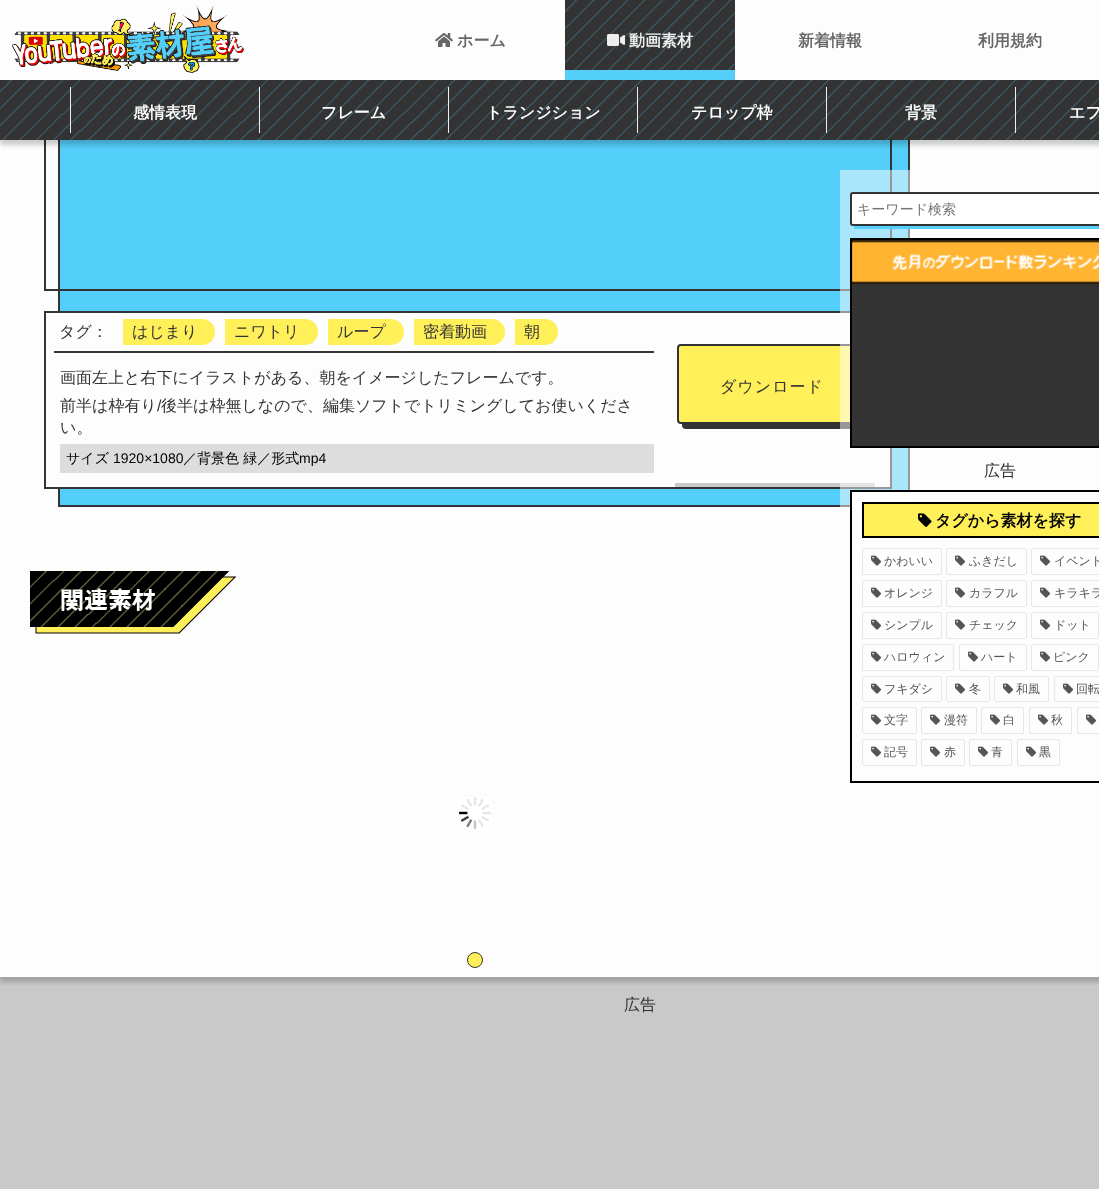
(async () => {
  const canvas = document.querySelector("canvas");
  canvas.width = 1099;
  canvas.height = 1189;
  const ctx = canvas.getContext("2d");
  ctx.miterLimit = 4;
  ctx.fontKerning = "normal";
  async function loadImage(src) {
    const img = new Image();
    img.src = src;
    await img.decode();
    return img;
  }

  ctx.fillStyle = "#fdfdfd";
  ctx.fillRect(0, 0, 1099, 1189);
  ctx.fillStyle = "#c9c9c9";
  ctx.fillRect(0, 977, 1099, 212);
  ctx.save();
  ctx.beginPath();
  ctx.rect(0, 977, 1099, 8);
  ctx.clip();
  ctx.fillStyle = "rgba(0, 0, 0, 0.2)";
  ctx.filter = "blur(2.5px)";
  ctx.beginPath();
  ctx.rect(0, -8, 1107, 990);
  ctx.fill();
  ctx.filter = "none";
  ctx.restore();
  ctx.fillStyle = "#54cff9";
  ctx.fillRect(60, 140, 848, 365);
  ctx.strokeStyle = "#333333";
  ctx.lineWidth = 2;
  ctx.strokeRect(59, -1, 850, 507);
  ctx.strokeRect(45, -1, 846, 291);
  ctx.fillStyle = "#fdfdfd";
  ctx.fillRect(44, 0, 866, 80);
  ctx.drawImage(await loadImage("img/1.png"), 12, 5, 232, 68);
  ctx.fillStyle = "#333333";
  ctx.fillRect(565, 0, 170, 70);
  ctx.drawImage(await loadImage("img/2.png"), 565, 0, 170, 70);
  ctx.drawImage(await loadImage("img/3.png"), 607, 34, 18, 12);
  ctx.fillStyle = "rgba(0, 0, 0, 0.2)";
  ctx.filter = "blur(2.5px)";
  ctx.beginPath();
  ctx.rect(0, 85, 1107, 60);
  ctx.fill();
  ctx.filter = "none";
  ctx.fillStyle = "#54cff9";
  ctx.fillRect(565, 70, 170, 10);
  ctx.fillStyle = "#333333";
  ctx.fillRect(0, 80, 1099, 60);
  ctx.drawImage(await loadImage("img/4.png"), 0, 80, 1099, 60);
  for (const [x, y, w, h, color] of [
    [70, 87, 1, 46, "#eeeeee"],
    [259, 87, 1, 46, "#eeeeee"],
    [448, 87, 1, 46, "#eeeeee"],
    [637, 87, 1, 46, "#eeeeee"],
    [826, 87, 1, 46, "#eeeeee"],
    [1015, 87, 1, 46, "#eeeeee"],
  ]) {
    ctx.fillStyle = color;
    ctx.fillRect(x, y, w, h);
  }
  ctx.drawImage(await loadImage("img/5.png"), 435, 33, 18, 14);
  ctx.fillStyle = "#fdfdfd";
  ctx.fillRect(58, 313, 832, 174);
  ctx.strokeRect(45, 312, 846, 176);
  ctx.fillStyle = "#333333";
  ctx.fillRect(54, 351, 600, 2);
  ctx.fillStyle = "#fff05a";
  ctx.beginPath();
  ctx.roundRect(123, 319, 92, 26, [0, 13, 13, 0]);
  ctx.fill();
  ctx.beginPath();
  ctx.roundRect(225, 319, 93, 26, [0, 13, 13, 0]);
  ctx.fill();
  ctx.beginPath();
  ctx.roundRect(328, 319, 76, 26, [0, 13, 13, 0]);
  ctx.fill();
  ctx.beginPath();
  ctx.roundRect(414, 319, 91, 26, [0, 13, 13, 0]);
  ctx.fill();
  ctx.beginPath();
  ctx.roundRect(515, 319, 43, 26, [0, 13, 13, 0]);
  ctx.fill();
  ctx.fillStyle = "#dddddd";
  ctx.fillRect(60, 444, 594, 29);
  ctx.fillStyle = "#333333";
  ctx.beginPath();
  ctx.roundRect(682, 349, 190, 80, 4);
  ctx.fill();
  ctx.fillStyle = "#fff05a";
  ctx.beginPath();
  ctx.roundRect(678, 345, 188, 78, 3);
  ctx.fill();
  ctx.stroke();
  ctx.fillStyle = "#c9c9c9";
  ctx.fillRect(675, 483, 200, 4);
  ctx.fillStyle = "rgba(253, 253, 253, 0.5)";
  ctx.fillRect(840, 170, 70, 337);
  ctx.fillStyle = "#ffffff";
  ctx.beginPath();
  ctx.roundRect(851, 193, 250, 32, 2);
  ctx.fill();
  ctx.stroke();
  ctx.fillStyle = "#54cff9";
  ctx.fillRect(854, 226, 245, 3);
  ctx.fillStyle = "#333333";
  ctx.beginPath();
  ctx.rect(851, 239, 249, 208);
  ctx.fill();
  ctx.strokeStyle = "#000000";
  ctx.stroke();
  ctx.drawImage(await loadImage("img/6.png"), 852, 240, 247, 44);
  ctx.fillStyle = "#ffffff";
  ctx.fillRect(852, 492, 58, 15);
  ctx.strokeRect(851, 491, 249, 291);
  ctx.fillStyle = "#fff05a";
  ctx.beginPath();
  ctx.rect(863, 503, 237, 34);
  ctx.fill();
  ctx.stroke();
  ctx.drawImage(await loadImage("img/7.png"), 918, 513, 14, 14);
  ctx.beginPath();
  ctx.roundRect(862.5, 548.5, 79, 26, 1.5);
  ctx.strokeStyle = "#e6e6e6";
  ctx.lineWidth = 1;
  ctx.stroke();
  ctx.drawImage(await loadImage("img/8.png"), 871, 555, 11, 11);
  ctx.beginPath();
  ctx.roundRect(946.5, 548.5, 80, 26, 1.5);
  ctx.stroke();
  ctx.drawImage(await loadImage("img/8.png"), 955, 555, 11, 11);
  ctx.beginPath();
  ctx.roundRect(1031.5, 548.5, 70, 26, 1.5);
  ctx.stroke();
  ctx.drawImage(await loadImage("img/8.png"), 1040, 555, 11, 11);
  ctx.beginPath();
  ctx.roundRect(862.5, 580.5, 79, 26, 1.5);
  ctx.stroke();
  ctx.drawImage(await loadImage("img/8.png"), 871, 587, 11, 11);
  ctx.beginPath();
  ctx.roundRect(946.5, 580.5, 80, 26, 1.5);
  ctx.stroke();
  ctx.drawImage(await loadImage("img/8.png"), 955, 587, 11, 11);
  ctx.beginPath();
  ctx.roundRect(1031.5, 580.5, 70, 26, 1.5);
  ctx.stroke();
  ctx.drawImage(await loadImage("img/8.png"), 1040, 587, 11, 11);
  ctx.beginPath();
  ctx.roundRect(862.5, 612.5, 79, 26, 1.5);
  ctx.stroke();
  ctx.drawImage(await loadImage("img/8.png"), 871, 619, 11, 11);
  ctx.beginPath();
  ctx.roundRect(946.5, 612.5, 80, 26, 1.5);
  ctx.stroke();
  ctx.drawImage(await loadImage("img/8.png"), 955, 619, 11, 11);
  ctx.beginPath();
  ctx.roundRect(1031.5, 612.5, 67, 26, 1.5);
  ctx.stroke();
  ctx.drawImage(await loadImage("img/8.png"), 1040, 619, 11, 11);
  ctx.beginPath();
  ctx.roundRect(862.5, 644.5, 91, 26, 1.5);
  ctx.stroke();
  ctx.drawImage(await loadImage("img/8.png"), 871, 651, 11, 11);
  ctx.beginPath();
  ctx.roundRect(959.5, 644.5, 67, 26, 1.5);
  ctx.stroke();
  ctx.drawImage(await loadImage("img/8.png"), 968, 651, 11, 11);
  ctx.beginPath();
  ctx.roundRect(1031.5, 644.5, 67, 26, 1.5);
  ctx.stroke();
  ctx.drawImage(await loadImage("img/8.png"), 1040, 651, 11, 11);
  ctx.beginPath();
  ctx.roundRect(862.5, 676.5, 79, 25, 1.5);
  ctx.stroke();
  ctx.drawImage(await loadImage("img/8.png"), 871, 683, 11, 11);
  ctx.beginPath();
  ctx.roundRect(946.5, 676.5, 43, 25, 1.5);
  ctx.stroke();
  ctx.drawImage(await loadImage("img/8.png"), 955, 683, 11, 11);
  ctx.beginPath();
  ctx.roundRect(994.5, 676.5, 54, 25, 1.5);
  ctx.stroke();
  ctx.drawImage(await loadImage("img/8.png"), 1003, 683, 11, 11);
  ctx.beginPath();
  ctx.roundRect(1054.5, 676.5, 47, 25, 1.5);
  ctx.stroke();
  ctx.drawImage(await loadImage("img/8.png"), 1063, 683, 11, 11);
  ctx.beginPath();
  ctx.roundRect(862.5, 707.5, 54, 26, 1.5);
  ctx.stroke();
  ctx.drawImage(await loadImage("img/8.png"), 871, 714, 11, 11);
  ctx.beginPath();
  ctx.roundRect(921.5, 707.5, 55, 26, 1.5);
  ctx.stroke();
  ctx.drawImage(await loadImage("img/8.png"), 930, 714, 11, 11);
  ctx.beginPath();
  ctx.roundRect(981.5, 707.5, 42, 26, 1.5);
  ctx.stroke();
  ctx.drawImage(await loadImage("img/8.png"), 990, 714, 11, 11);
  ctx.beginPath();
  ctx.roundRect(1029.5, 707.5, 42, 26, 1.5);
  ctx.stroke();
  ctx.drawImage(await loadImage("img/8.png"), 1038, 714, 11, 11);
  ctx.beginPath();
  ctx.roundRect(1077.5, 707.5, 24, 26, 1.5);
  ctx.stroke();
  ctx.drawImage(await loadImage("img/8.png"), 1086, 714, 11, 11);
  ctx.beginPath();
  ctx.roundRect(862.5, 739.5, 54, 26, 1.5);
  ctx.stroke();
  ctx.drawImage(await loadImage("img/8.png"), 871, 746, 11, 11);
  ctx.beginPath();
  ctx.roundRect(921.5, 739.5, 43, 26, 1.5);
  ctx.stroke();
  ctx.drawImage(await loadImage("img/8.png"), 930, 746, 11, 11);
  ctx.beginPath();
  ctx.roundRect(969.5, 739.5, 42, 26, 1.5);
  ctx.stroke();
  ctx.drawImage(await loadImage("img/8.png"), 978, 746, 11, 11);
  ctx.beginPath();
  ctx.roundRect(1017.5, 739.5, 42, 26, 1.5);
  ctx.stroke();
  ctx.drawImage(await loadImage("img/8.png"), 1026, 746, 11, 11);
  ctx.drawImage(await loadImage("img/9.png"), 30, 571, 207, 63);
  ctx.drawImage(await loadImage("img/10.png"), 459, 797, 32, 32);
  ctx.beginPath();
  ctx.arc(475, 960, 7.5, 0, Math.PI * 2);
  ctx.fill();
  ctx.strokeStyle = "#333333";
  ctx.stroke();
  ctx.font = "bold 16px WenQuanYi Zen Hei";
  ctx.fillStyle = "#eeeeee";
  ctx.fillText("動画素材", 629, 46);
  ctx.fillStyle = "#fdfdfd";
  for (const [text, x, y] of [
    ["感情表現", 133, 118],
    ["フレーム", 321, 118],
    ["トランジション", 486, 118],
    ["テロップ枠", 691, 118],
    ["背景", 905, 118],
    ["エフ", 1069, 118],
  ]) {
    ctx.fillText(text, x, y);
  }
  ctx.fillStyle = "#666666";
  for (const [text, x, y] of [
    ["ホーム", 457, 46],
    ["新着情報", 798, 46],
    ["利用規約", 978, 46],
  ]) {
    ctx.fillText(text, x, y);
  }
  ctx.font = "500 16px WenQuanYi Zen Hei";
  ctx.fillStyle = "#333333";
  for (const [text, x, y] of [
    ["タグ：", 59, 337],
    ["はじまり", 132, 337],
    ["ニワトリ", 234, 337],
    ["ループ", 337, 337],
    ["密着動画", 423, 337],
    ["朝", 524, 337],
    ["画面左上と右下にイラストがある、朝をイメージしたフレームです。", 60, 383],
    ["前半は枠有り", 60, 411],
  ]) {
    ctx.fillText(text, x, y);
  }
  ctx.font = "16px Liberation Sans";
  ctx.fillText("/", 157, 411);
  ctx.font = "500 16px WenQuanYi Zen Hei";
  ctx.fillText("後半は枠無しなので、編集ソフトでトリミングしてお使いくださ", 161, 411);
  ctx.fillText("い。", 60, 433);
  ctx.font = "500 14px WenQuanYi Zen Hei";
  ctx.fillStyle = "#000000";
  ctx.fillText("サイズ", 66, 463);
  ctx.font = "14px Liberation Sans";
  ctx.fillText("1920×1080", 113, 463);
  ctx.font = "500 14px WenQuanYi Zen Hei";
  ctx.fillText("／背景色 緑／形式", 183, 463);
  ctx.font = "14px Liberation Sans";
  ctx.fillText("mp4", 299, 463);
  ctx.letterSpacing = "1px";
  ctx.font = "500 16px WenQuanYi Zen Hei";
  ctx.fillStyle = "#333333";
  ctx.fillText("ダウンロード", 720, 392);
  ctx.letterSpacing = "0px";
  ctx.font = "500 14px WenQuanYi Zen Hei";
  ctx.fillStyle = "#757575";
  ctx.fillText("キーワード検索", 857, 214);
  ctx.font = "500 16px WenQuanYi Zen Hei";
  ctx.fillStyle = "#333333";
  ctx.fillText("広告", 984, 476);
  ctx.font = "bold 16px WenQuanYi Zen Hei";
  ctx.fillStyle = "#000000";
  ctx.fillText("タグから素材を探す", 935, 526);
  ctx.font = "500 12px WenQuanYi Zen Hei";
  ctx.fillStyle = "#555555";
  for (const [text, x, y] of [
    ["かわいい", 884, 565],
    ["ふきだし", 969, 565],
    ["イベント", 1054, 565],
    ["オレンジ", 884, 597],
    ["カラフル", 969, 597],
    ["キラキラ", 1054, 597],
    ["シンプル", 884, 629],
    ["チェック", 969, 629],
    ["ドット", 1054, 629],
    ["ハロウィン", 884, 661],
    ["ハート", 981, 661],
    ["ピンク", 1053, 661],
    ["フキダシ", 884, 693],
    ["冬", 969, 693],
    ["和風", 1016, 693],
    ["回転", 1076, 693],
    ["文字", 884, 724],
    ["漫符", 944, 724],
    ["白", 1003, 724],
    ["秋", 1051, 724],
    ["記号", 884, 756],
    ["赤", 944, 756],
    ["青", 991, 756],
    ["黒", 1039, 756],
  ]) {
    ctx.fillText(text, x, y);
  }
  ctx.font = "500 16px WenQuanYi Zen Hei";
  ctx.fillStyle = "#333333";
  ctx.fillText("広告", 624, 1010);
})();
